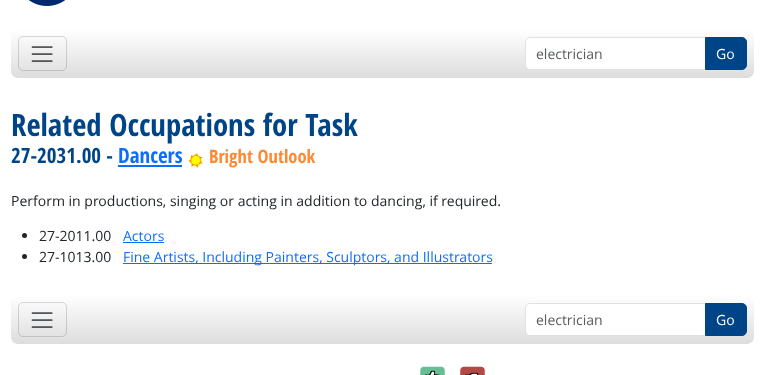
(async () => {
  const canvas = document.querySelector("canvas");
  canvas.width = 764;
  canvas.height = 375;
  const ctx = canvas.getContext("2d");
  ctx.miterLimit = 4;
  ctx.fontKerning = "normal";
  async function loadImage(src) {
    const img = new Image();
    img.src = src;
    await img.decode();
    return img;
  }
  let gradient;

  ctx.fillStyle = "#ffffff";
  ctx.fillRect(0, 0, 764, 375);
  ctx.drawImage(await loadImage("img/1.png"), 28, 0, 38, 6);
  gradient = ctx.createLinearGradient(383, 29, 383, 78);
  gradient.addColorStop(0, "#ffffff");
  gradient.addColorStop(1, "#dddddd");
  ctx.fillStyle = gradient;
  ctx.beginPath();
  ctx.roundRect(11, 29, 743, 49, 7);
  ctx.fill();
  ctx.beginPath();
  ctx.roundRect(18.5, 36.5, 48, 34, 4.5);
  ctx.strokeStyle = "rgba(0, 0, 0, 0.15)";
  ctx.stroke();
  ctx.drawImage(await loadImage("img/2.png"), 31, 46, 22, 16);
  ctx.fillStyle = "#ffffff";
  ctx.beginPath();
  ctx.roundRect(525.5, 37.5, 180, 32, [4.5, 0, 0, 4.5]);
  ctx.fill();
  ctx.strokeStyle = "#dee2e6";
  ctx.stroke();
  ctx.fillStyle = "#004488";
  ctx.beginPath();
  ctx.roundRect(705.5, 37.5, 41, 32, [0, 4.5, 4.5, 0]);
  ctx.fill();
  ctx.strokeStyle = "#004488";
  ctx.stroke();
  ctx.fillStyle = "#0d6efd";
  ctx.fillRect(118, 165, 64, 2);
  ctx.drawImage(await loadImage("img/3.png"), 188, 153, 15, 15);
  ctx.fillStyle = "#212529";
  ctx.beginPath();
  ctx.arc(24.5, 235.5, 2.5, 0, Math.PI * 2);
  ctx.fill();
  ctx.fillStyle = "#0d6efd";
  ctx.fillRect(123, 242, 41, 1);
  ctx.fillStyle = "#212529";
  ctx.beginPath();
  ctx.arc(24.5, 256.5, 2.5, 0, Math.PI * 2);
  ctx.fill();
  ctx.fillStyle = "#0d6efd";
  ctx.fillRect(123, 263, 369, 1);
  gradient = ctx.createLinearGradient(383, 295, 383, 344);
  gradient.addColorStop(0, "#ffffff");
  gradient.addColorStop(1, "#dddddd");
  ctx.fillStyle = gradient;
  ctx.beginPath();
  ctx.roundRect(11, 295, 743, 49, 7);
  ctx.fill();
  ctx.beginPath();
  ctx.roundRect(18.5, 302.5, 48, 34, 4.5);
  ctx.strokeStyle = "rgba(0, 0, 0, 0.15)";
  ctx.stroke();
  ctx.drawImage(await loadImage("img/2.png"), 31, 312, 22, 16);
  ctx.fillStyle = "#ffffff";
  ctx.beginPath();
  ctx.roundRect(525.5, 303.5, 180, 32, [4.5, 0, 0, 4.5]);
  ctx.fill();
  ctx.strokeStyle = "#dee2e6";
  ctx.stroke();
  ctx.fillStyle = "#004488";
  ctx.beginPath();
  ctx.roundRect(705.5, 303.5, 41, 32, [0, 4.5, 4.5, 0]);
  ctx.fill();
  ctx.strokeStyle = "#004488";
  ctx.stroke();
  ctx.drawImage(await loadImage("img/4.png"), 420, 366, 25, 9);
  ctx.drawImage(await loadImage("img/5.png"), 425, 370, 13, 5);
  ctx.drawImage(await loadImage("img/8.png"), 434, 372, 2, 3);
  ctx.drawImage(await loadImage("img/6.png"), 426, 370, 14, 5);
  ctx.drawImage(await loadImage("img/7.png"), 430, 371, 5, 4);
  ctx.drawImage(await loadImage("img/9.png"), 460, 366, 25, 9);
  ctx.drawImage(await loadImage("img/10.png"), 465, 372, 11, 3);
  ctx.drawImage(await loadImage("img/11.png"), 466, 372, 13, 3);
  ctx.drawImage(await loadImage("img/12.png"), 470, 373, 8, 2);
  ctx.font = "14px Open Sans";
  ctx.fillStyle = "#595c5f";
  ctx.fillText("electrician", 536, 59);
  ctx.fillStyle = "#ffffff";
  ctx.fillText("Go", 716, 59);
  ctx.font = "bold 30.75px Open Sans Condensed";
  ctx.fillStyle = "#004488";
  ctx.fillText("Related Occupations for Task", 11, 136);
  ctx.font = "bold 21px Open Sans Condensed";
  ctx.fillText("27-2031.00 -", 11, 163);
  ctx.fillStyle = "#0d6efd";
  ctx.fillText("Dancers", 118, 163);
  ctx.font = "bold 18.5px Open Sans Condensed";
  ctx.fillStyle = "#ff8833";
  ctx.fillText("Bright Outlook", 209, 163);
  ctx.font = "14px Open Sans";
  ctx.fillStyle = "#212529";
  ctx.fillText("Perform in productions, singing or acting in addition to dancing, if required.", 11, 206);
  ctx.fillText("27-2011.00", 39, 241);
  ctx.fillStyle = "#0d6efd";
  ctx.fillText("Actors", 123, 241);
  ctx.fillStyle = "#212529";
  ctx.fillText("27-1013.00", 39, 262);
  ctx.fillStyle = "#0d6efd";
  ctx.fillText("Fine Artists, Including Painters, Sculptors, and Illustrators", 123, 262);
  ctx.fillStyle = "#595c5f";
  ctx.fillText("electrician", 536, 325);
  ctx.fillStyle = "#ffffff";
  ctx.fillText("Go", 716, 325);
})();
